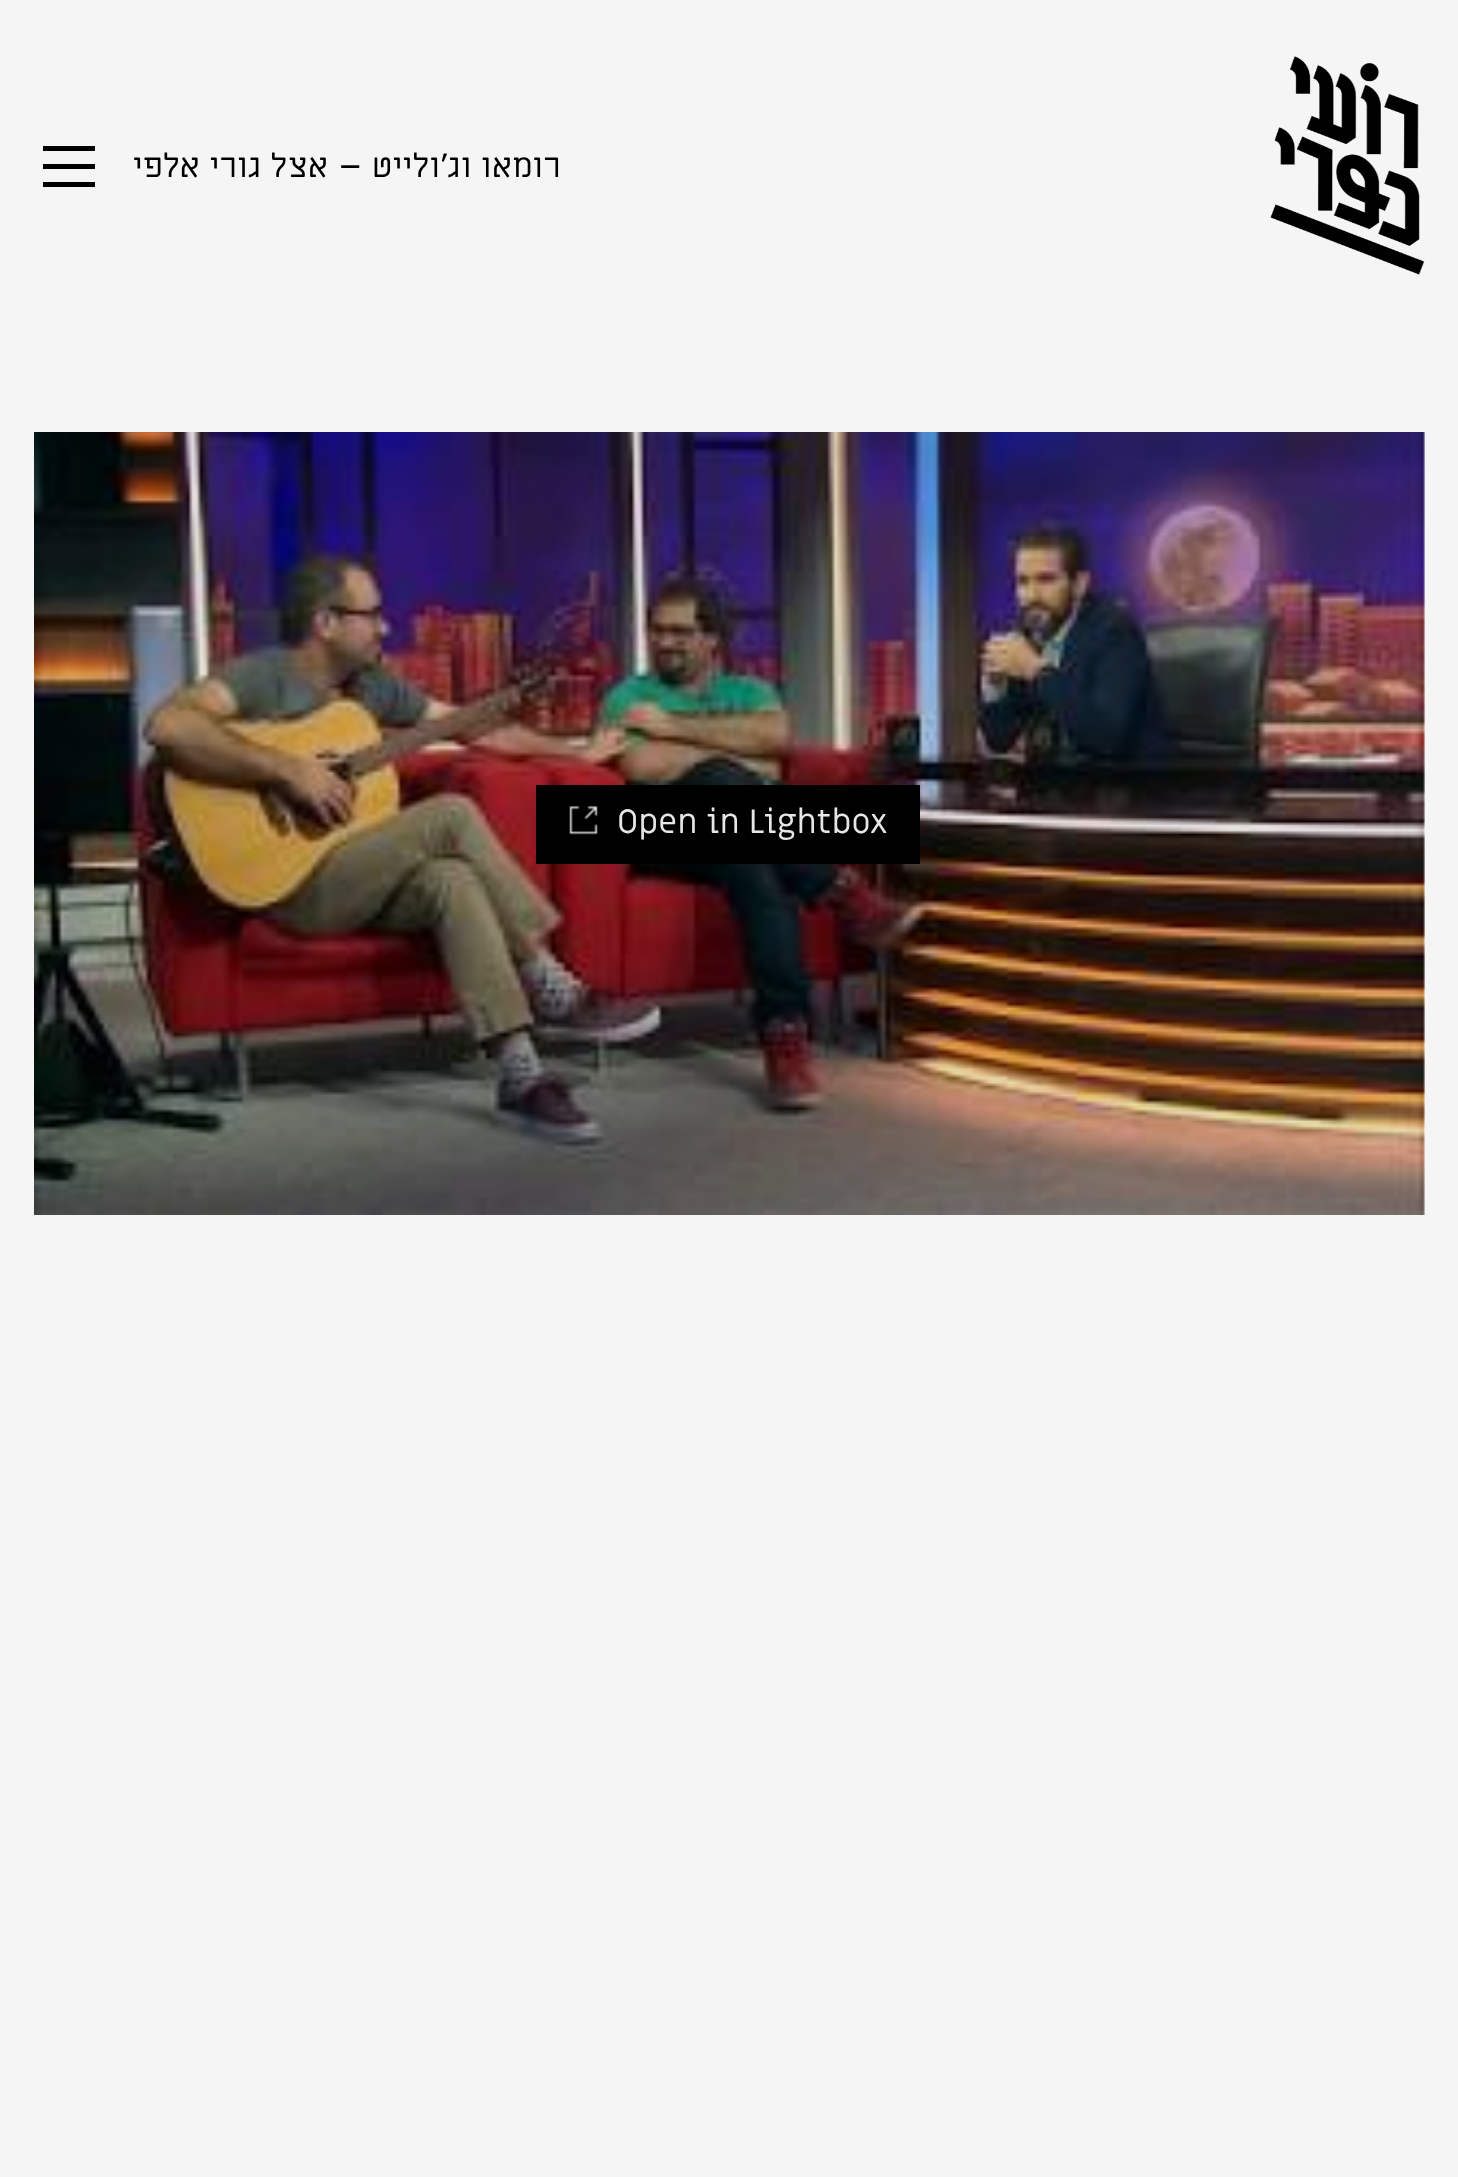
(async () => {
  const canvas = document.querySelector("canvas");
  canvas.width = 1458;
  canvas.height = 2177;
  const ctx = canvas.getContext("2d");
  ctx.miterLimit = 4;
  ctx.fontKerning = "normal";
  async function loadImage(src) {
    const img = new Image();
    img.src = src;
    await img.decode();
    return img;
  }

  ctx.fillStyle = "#f5f5f5";
  ctx.fillRect(0, 0, 1458, 2177);
  ctx.drawImage(await loadImage("img/1.png"), 1270, 56, 155, 219);
  for (const [x, y, w, h, color] of [
    [43, 164, 52, 5, "#000000"],
    [43, 146, 52, 5, "#000000"],
    [43, 182, 52, 5, "#000000"],
  ]) {
    ctx.fillStyle = color;
    ctx.fillRect(x, y, w, h);
  }
  ctx.drawImage(await loadImage("img/2.png"), 34, 432, 1391, 783);
  ctx.fillRect(536, 785, 384, 79);
  ctx.drawImage(await loadImage("img/3.png"), 569, 806, 29, 29);
  ctx.direction = "rtl";
  ctx.font = "33.75px Miriam Libre";
  ctx.fillText("רומאו וג׳ולייט – אצל גורי אלפי", 561, 177);
  ctx.direction = "ltr";
  ctx.fillStyle = "#e6e6e6";
  ctx.fillText("Open in Lightbox", 617, 833);
})();
